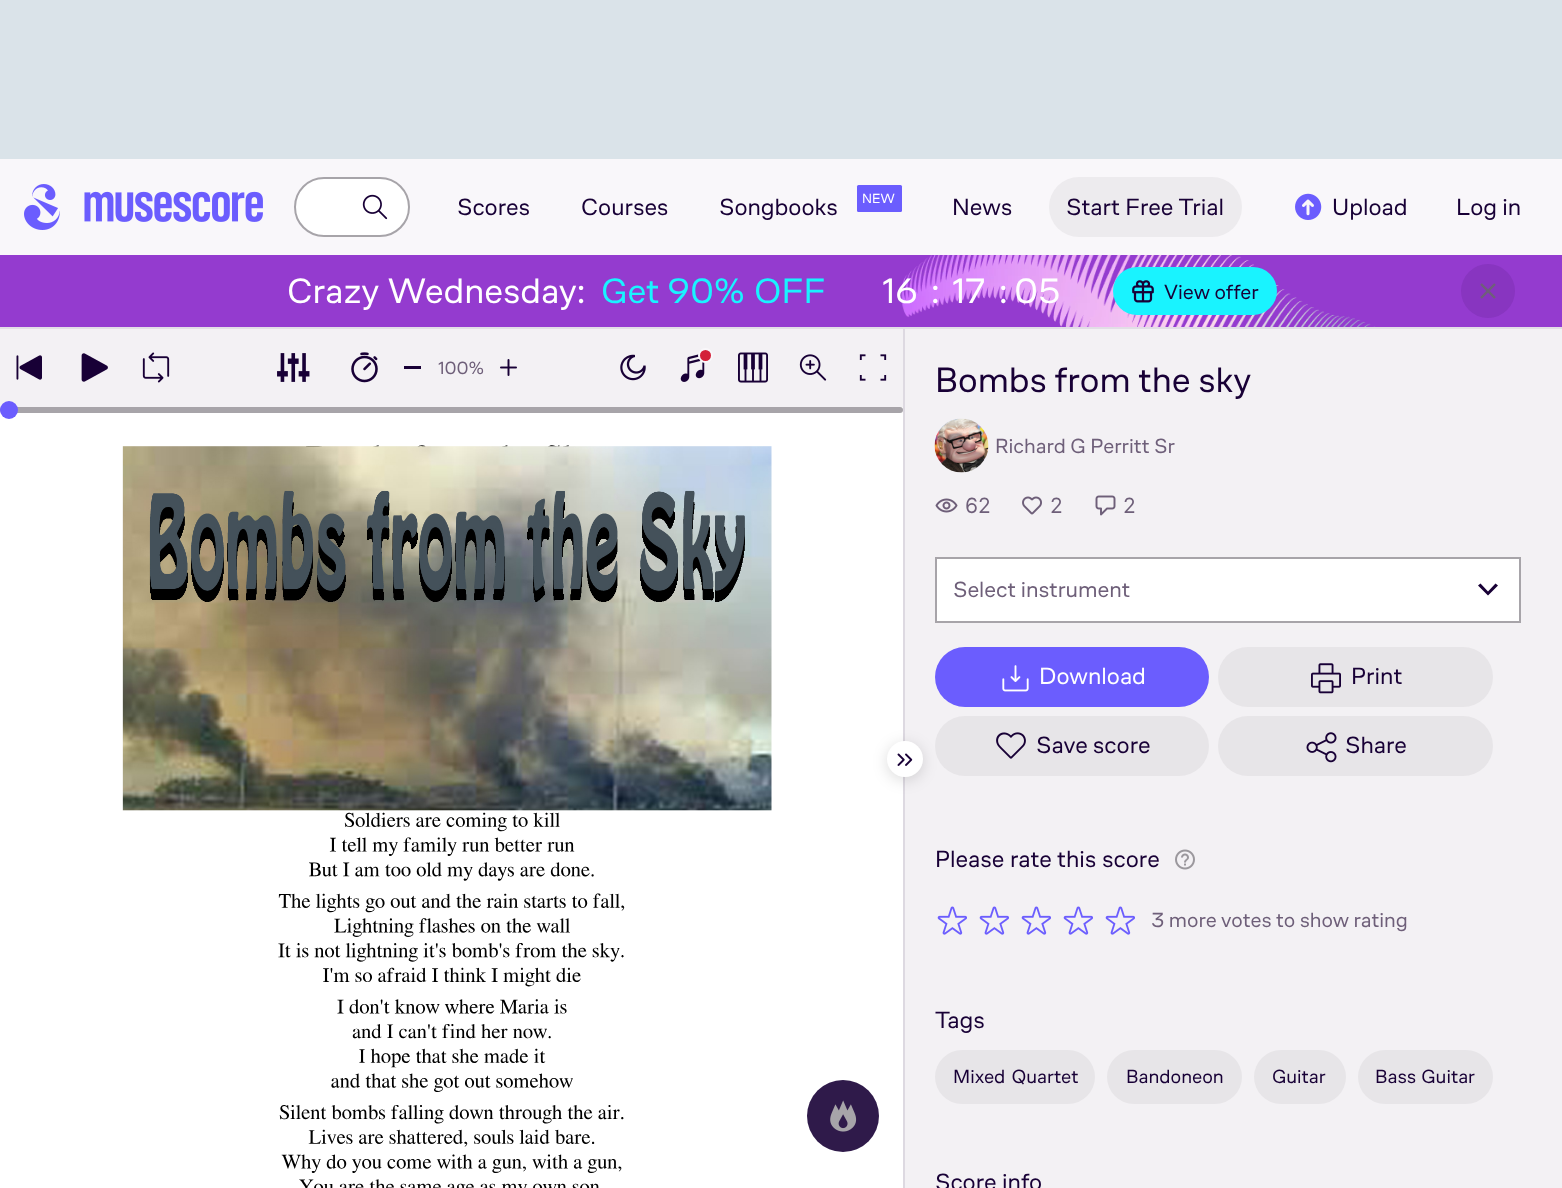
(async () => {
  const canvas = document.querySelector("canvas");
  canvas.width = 1562;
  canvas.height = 1188;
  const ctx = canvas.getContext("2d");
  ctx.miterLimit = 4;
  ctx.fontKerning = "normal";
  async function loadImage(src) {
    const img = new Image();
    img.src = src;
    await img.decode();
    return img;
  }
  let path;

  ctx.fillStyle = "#f9f7fa";
  ctx.fillRect(0, 0, 1562, 1188);
  ctx.fillStyle = "#e2dee6";
  ctx.fillRect(0, 327, 1562, 2);
  ctx.fillStyle = "#dae3e9";
  ctx.fillRect(0, 0, 1562, 159);
  ctx.drawImage(await loadImage("img/1.png"), 24, 184, 239, 46);
  ctx.fillStyle = "#ffffff";
  ctx.beginPath();
  ctx.roundRect(295, 178, 114, 58, 29);
  ctx.fill();
  ctx.strokeStyle = "#a7a4a9";
  ctx.lineWidth = 2;
  ctx.stroke();
  ctx.drawImage(await loadImage("img/2.png"), 362, 194, 26, 26);
  ctx.fillStyle = "#6b5dfe";
  ctx.beginPath();
  ctx.roundRect(857, 185, 45, 27, 1.5);
  ctx.fill();
  ctx.fillStyle = "#edebee";
  ctx.beginPath();
  ctx.roundRect(1049, 177, 193, 60, 30);
  ctx.fill();
  ctx.drawImage(await loadImage("img/3.png"), 1295, 193, 27, 27);
  ctx.fillStyle = "#943bcf";
  ctx.fillRect(0, 255, 1562, 72);
  ctx.drawImage(await loadImage("img/4.png"), 901, 255, 475, 72);
  ctx.fillStyle = "#19f3ff";
  ctx.beginPath();
  ctx.roundRect(1113, 267, 164, 48, 24);
  ctx.fill();
  ctx.drawImage(await loadImage("img/5.png"), 1132, 280, 22, 23);
  ctx.fillStyle = "#8835c0";
  ctx.beginPath();
  ctx.arc(1488, 291, 27, 0, Math.PI * 2);
  ctx.fill();
  ctx.drawImage(await loadImage("img/6.png"), 1480, 283, 16, 16);
  ctx.fillStyle = "#ffffff";
  ctx.fillRect(0, 407, 903, 781);
  ctx.fillStyle = "#a7a4a9";
  ctx.beginPath();
  ctx.roundRect(0, 407, 903, 6, 3);
  ctx.fill();
  ctx.fillStyle = "#f3f1f4";
  ctx.fillRect(0, 329, 903, 78);
  ctx.fillStyle = "#6b5dfe";
  ctx.beginPath();
  ctx.arc(9, 410, 9, 0, Math.PI * 2);
  ctx.fill();
  ctx.drawImage(await loadImage("img/7.png"), 16, 355, 26, 25);
  ctx.drawImage(await loadImage("img/8.png"), 81, 353, 27, 29);
  ctx.drawImage(await loadImage("img/9.png"), 142, 352, 28, 31);
  ctx.drawImage(await loadImage("img/10.png"), 277, 353, 33, 29);
  ctx.drawImage(await loadImage("img/11.png"), 351, 352, 27, 31);
  ctx.fillStyle = "#180036";
  ctx.fillRect(404, 366, 17, 3);
  ctx.drawImage(await loadImage("img/12.png"), 500, 359, 17, 17);
  ctx.drawImage(await loadImage("img/13.png"), 620, 354, 26, 27);
  ctx.drawImage(await loadImage("img/14.png"), 680, 354, 25, 28);
  ctx.fillStyle = "#d32139";
  ctx.beginPath();
  ctx.arc(705.5, 355.5, 6.5, 0, Math.PI * 2);
  ctx.fill();
  ctx.strokeStyle = "#f9f7fa";
  ctx.stroke();
  ctx.drawImage(await loadImage("img/15.png"), 738, 352, 30, 31);
  ctx.drawImage(await loadImage("img/16.png"), 799, 354, 28, 27);
  ctx.drawImage(await loadImage("img/17.png"), 859, 354, 28, 27);
  ctx.drawImage(await loadImage("img/18.png"), 122, 445, 650, 743);
  ctx.fillStyle = "#2f1a4a";
  ctx.beginPath();
  ctx.arc(843, 1116, 36, 0, Math.PI * 2);
  ctx.fill();
  ctx.drawImage(await loadImage("img/19.png"), 830, 1100, 27, 32);
  ctx.fillStyle = "#f3f1f4";
  ctx.fillRect(905, 329, 657, 859);
  ctx.fillStyle = "#ddd9e1";
  ctx.fillRect(903, 329, 2, 859);
  ctx.fillStyle = "#e7e5e8";
  ctx.beginPath();
  ctx.roundRect(935, 716, 274, 60, 30);
  ctx.fill();
  ctx.fillStyle = "rgba(0, 0, 0, 0.14)";
  ctx.filter = "blur(7.5px)";
  ctx.beginPath();
  ctx.roundRect(887, 744, 36, 36, 18);
  ctx.fill();
  ctx.filter = "none";
  ctx.fillStyle = "#ffffff";
  ctx.beginPath();
  ctx.arc(905, 759, 18, 0, Math.PI * 2);
  ctx.fill();
  ctx.drawImage(await loadImage("img/20.png"), 897, 753, 16, 13);
  ctx.drawImage(await loadImage("img/21.png"), 934, 418, 55, 55);
  ctx.drawImage(await loadImage("img/22.png"), 935, 498, 23, 15);
  ctx.drawImage(await loadImage("img/23.png"), 1022, 496, 20, 19);
  ctx.drawImage(await loadImage("img/24.png"), 1095, 495, 21, 21);
  ctx.beginPath();
  ctx.rect(936, 558, 584, 64);
  ctx.fill();
  ctx.strokeStyle = "#a7a4a9";
  ctx.stroke();
  ctx.fillStyle = "#180036";
  path = new Path2D("M1498 585.5L1488 595.5L1478 585.5L1480.5 583.5L1488 591.5L1495.5 583.5Z");
  ctx.fill(path, "evenodd");
  ctx.fillStyle = "#6b5dfe";
  ctx.beginPath();
  ctx.roundRect(935, 647, 274, 60, 30);
  ctx.fill();
  ctx.drawImage(await loadImage("img/25.png"), 1002, 665, 27, 27);
  ctx.fillStyle = "#e7e5e8";
  ctx.beginPath();
  ctx.roundRect(1218, 647, 275, 60, 30);
  ctx.fill();
  ctx.drawImage(await loadImage("img/26.png"), 1311, 663, 30, 31);
  ctx.drawImage(await loadImage("img/27.png"), 996, 732, 30, 27);
  ctx.beginPath();
  ctx.roundRect(1218, 716, 275, 60, 30);
  ctx.fill();
  ctx.drawImage(await loadImage("img/28.png"), 1306, 732, 31, 31);
  ctx.drawImage(await loadImage("img/29.png"), 1175, 849, 20, 21);
  ctx.drawImage(await loadImage("img/30.png"), 937, 906, 30, 29);
  ctx.drawImage(await loadImage("img/30.png"), 979, 906, 30, 29);
  ctx.drawImage(await loadImage("img/30.png"), 1021, 906, 30, 29);
  ctx.drawImage(await loadImage("img/30.png"), 1063, 906, 30, 29);
  ctx.drawImage(await loadImage("img/30.png"), 1105, 906, 30, 29);
  ctx.beginPath();
  ctx.roundRect(935, 1050, 160, 54, 27);
  ctx.fill();
  ctx.beginPath();
  ctx.roundRect(1107, 1050, 135, 54, 27);
  ctx.fill();
  ctx.beginPath();
  ctx.roundRect(1254, 1050, 92, 54, 27);
  ctx.fill();
  ctx.beginPath();
  ctx.roundRect(1358, 1050, 135, 54, 27);
  ctx.fill();
  ctx.font = "24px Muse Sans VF";
  ctx.fillStyle = "#180036";
  for (const [text, x, y] of [
    ["Scores", 457, 215],
    ["Courses", 581, 215],
    ["Songbooks", 719, 215],
  ]) {
    ctx.fillText(text, x, y);
  }
  ctx.font = "13.5px Muse Sans VF";
  ctx.fillStyle = "#ffffff";
  ctx.fillText("NEW", 862, 203);
  ctx.font = "24px Muse Sans VF";
  ctx.fillStyle = "#180036";
  for (const [text, x, y] of [
    ["News", 952, 215],
    ["Start Free Trial", 1066, 215],
    ["Upload", 1332, 215],
    ["Log in", 1456, 215],
  ]) {
    ctx.fillText(text, x, y);
  }
  ctx.font = "36px Muse Sans VF";
  ctx.fillStyle = "#ffffff";
  ctx.fillText("Crazy", 287, 303);
  ctx.fillText("Wednesday:", 388, 303);
  ctx.fillStyle = "#19f3ff";
  for (const [text, x, y] of [
    ["Get", 601, 303],
    ["90%", 667, 303],
    ["OFF", 754, 303],
  ]) {
    ctx.fillText(text, x, y);
  }
  ctx.fillStyle = "#ffffff";
  for (const [text, x, y] of [
    ["16", 882, 303],
    [":", 931, 303],
    ["17", 952, 303],
    [":", 999, 303],
    ["05", 1014, 303],
  ]) {
    ctx.fillText(text, x, y);
  }
  ctx.font = "21px Muse Sans VF";
  ctx.fillStyle = "#180036";
  ctx.fillText("View offer", 1164, 299);
  ctx.font = "18px Muse Sans VF";
  ctx.fillStyle = "#6e5f79";
  ctx.fillText("100%", 438, 374);
  ctx.font = "36px Muse Sans VF";
  ctx.fillStyle = "#180036";
  ctx.fillText("Bombs from the sky", 935, 392);
  ctx.font = "21px Muse Sans VF";
  ctx.fillStyle = "#6e5f79";
  ctx.fillText("Richard G Perritt Sr", 995, 453);
  ctx.font = "21px Inter";
  for (const [text, x, y] of [
    ["62", 965, 513],
    ["2", 1050, 513],
    ["2", 1123, 513],
  ]) {
    ctx.fillText(text, x, y);
  }
  ctx.font = "22.5px Muse Sans VF";
  ctx.fillText("Select instrument", 953, 597);
  ctx.font = "24px Muse Sans VF";
  ctx.fillStyle = "#ffffff";
  ctx.fillText("Download", 1039, 684);
  ctx.fillStyle = "#180036";
  for (const [text, x, y] of [
    ["Print", 1351, 684],
    ["Save score", 1036, 753],
    ["Share", 1345, 753],
    ["Please", 935, 867],
    ["rate", 1010, 867],
    ["this", 1057, 867],
    ["score", 1102, 867],
  ]) {
    ctx.fillText(text, x, y);
  }
  ctx.font = "21px Muse Sans VF";
  ctx.fillStyle = "#6e5f79";
  ctx.fillText("3 more votes to show rating", 1151, 927);
  ctx.font = "24px Muse Sans VF";
  ctx.fillStyle = "#180036";
  ctx.fillText("Tags", 935, 1028);
  ctx.wordSpacing = "2px";
  ctx.font = "19.5px Muse Sans VF";
  ctx.fillText("Mixed Quartet", 953, 1083);
  ctx.wordSpacing = "0px";
  ctx.fillText("Bandoneon", 1126, 1083);
  ctx.fillText("Guitar", 1272, 1083);
  ctx.wordSpacing = "1px";
  ctx.fillText("Bass Guitar", 1375, 1083);
  ctx.wordSpacing = "0px";
  ctx.font = "24px Muse Sans VF";
  ctx.fillText("Score", 935, 1190);
  ctx.fillText("info", 1002, 1190);
})();
